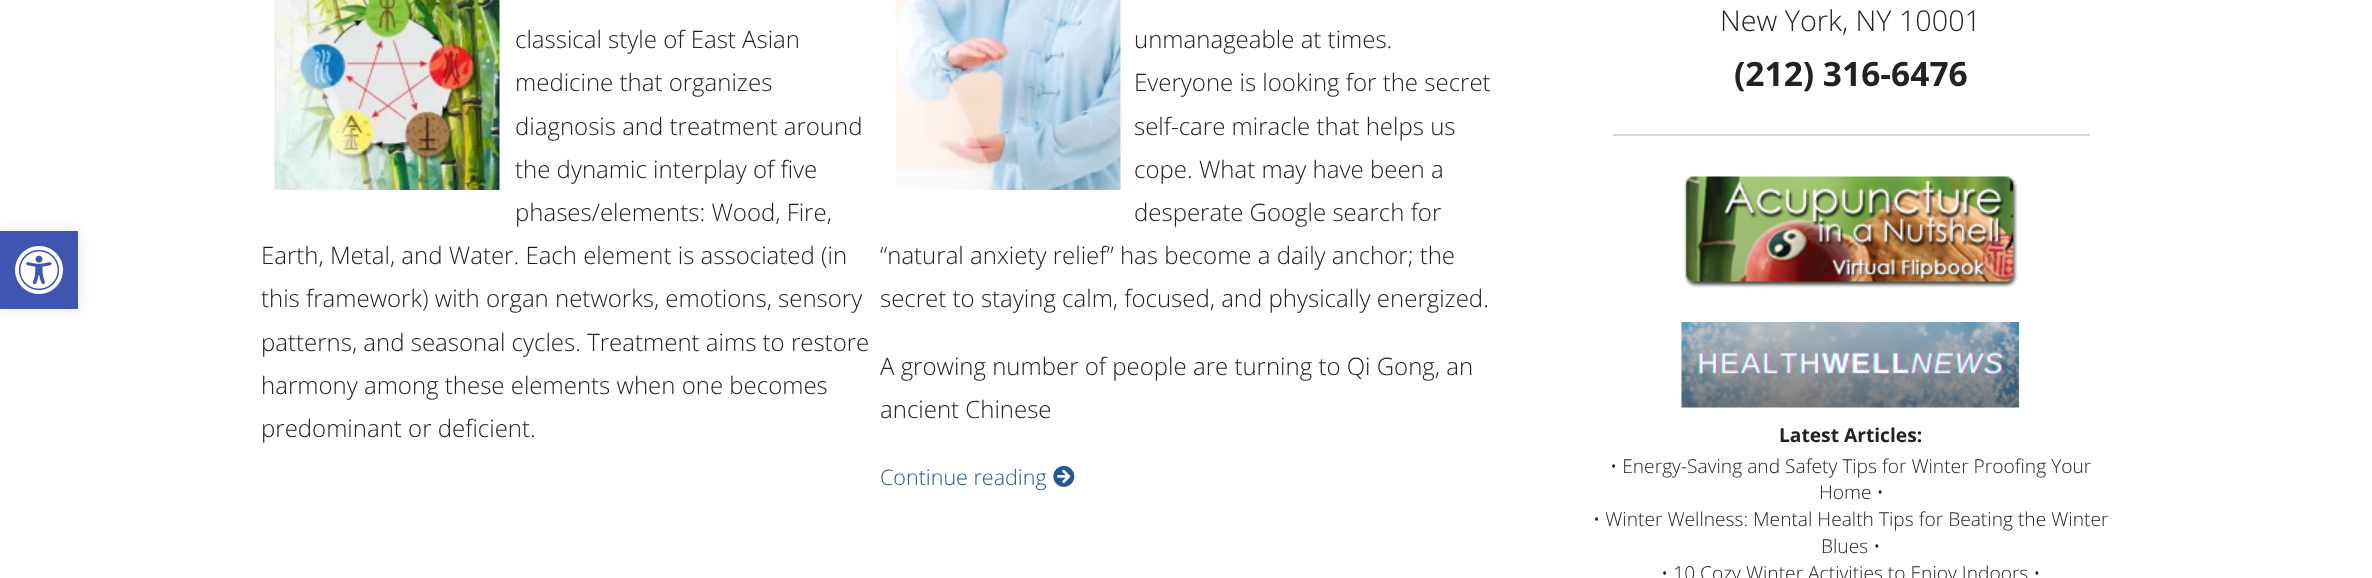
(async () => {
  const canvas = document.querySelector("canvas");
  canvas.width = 2372;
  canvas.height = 578;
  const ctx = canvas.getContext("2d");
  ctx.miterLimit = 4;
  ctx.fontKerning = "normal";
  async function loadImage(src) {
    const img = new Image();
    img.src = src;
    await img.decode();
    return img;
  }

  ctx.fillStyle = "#ffffff";
  ctx.fillRect(0, 0, 2372, 578);
  ctx.fillStyle = "rgba(0, 0, 0, 0.1)";
  ctx.filter = "blur(7.5px)";
  ctx.beginPath();
  ctx.rect(0, 231, 78, 78);
  ctx.fill();
  ctx.filter = "none";
  ctx.fillStyle = "#4054b2";
  ctx.fillRect(0, 231, 78, 78);
  ctx.drawImage(await loadImage("img/1.png"), 15, 246, 48, 48);
  ctx.drawImage(await loadImage("img/2.png"), 274, 0, 226, 190);
  ctx.drawImage(await loadImage("img/3.png"), 895, 0, 226, 190);
  ctx.drawImage(await loadImage("img/4.png"), 1053, 465, 22, 22);
  ctx.fillStyle = "#d9d9d9";
  ctx.fillRect(1613, 134, 477, 2);
  ctx.drawImage(await loadImage("img/5.png"), 1684, 176, 334, 112);
  ctx.drawImage(await loadImage("img/6.png"), 1681, 322, 338, 86);
  ctx.font = "300 24px Open Sans";
  ctx.fillStyle = "#222222";
  for (const [text, x, y] of [
    ["classical style of East Asian", 515, 48],
    ["medicine that organizes", 515, 91],
    ["diagnosis and treatment around", 515, 135],
    ["the dynamic interplay of five", 515, 178],
    ["phases/elements: Wood, Fire,", 515, 221],
    ["Earth, Metal, and Water. Each element is associated (in", 261, 264],
    ["this framework) with organ networks, emotions, sensory", 261, 307],
    ["patterns, and seasonal cycles. Treatment aims to restore", 261, 351],
    ["harmony among these elements when one becomes", 261, 394],
    ["predominant or deficient.", 261, 437],
    ["unmanageable at times.", 1134, 48],
    ["Everyone is looking for the secret", 1134, 91],
    ["self-care miracle that helps us", 1134, 135],
    ["cope. What may have been a", 1134, 178],
    ["desperate Google search for", 1134, 221],
    ["“natural anxiety relief” has become a daily anchor; the", 880, 264],
    ["secret to staying calm, focused, and physically energized.", 880, 307],
    ["A growing number of people are turning to Qi Gong, an", 880, 375],
    ["ancient Chinese", 880, 418],
  ]) {
    ctx.fillText(text, x, y);
  }
  ctx.font = "300 21.5px Open Sans";
  ctx.fillStyle = "#255696";
  ctx.fillText("Continue reading", 880, 485);
  ctx.font = "300 28.75px Open Sans";
  ctx.fillStyle = "#222222";
  ctx.fillText("New York, NY 10001", 1720, 31);
  ctx.font = "bold 33.5px Open Sans";
  ctx.fillText("(212) 316-6476", 1734, 86);
  ctx.font = "bold 19.2px Open Sans";
  ctx.fillText("Latest Articles:", 1779, 442);
  ctx.font = "300 19.2px Open Sans";
  for (const [text, x, y] of [
    ["• Energy-Saving and Safety Tips for Winter Proofing Your", 1610, 473],
    ["Home •", 1819, 499],
    ["• Winter Wellness: Mental Health Tips for Beating the Winter", 1593, 526],
    ["Blues •", 1821, 553],
    ["• 10 Cozy Winter Activities to Enjoy Indoors •", 1661, 580],
  ]) {
    ctx.fillText(text, x, y);
  }
})();
